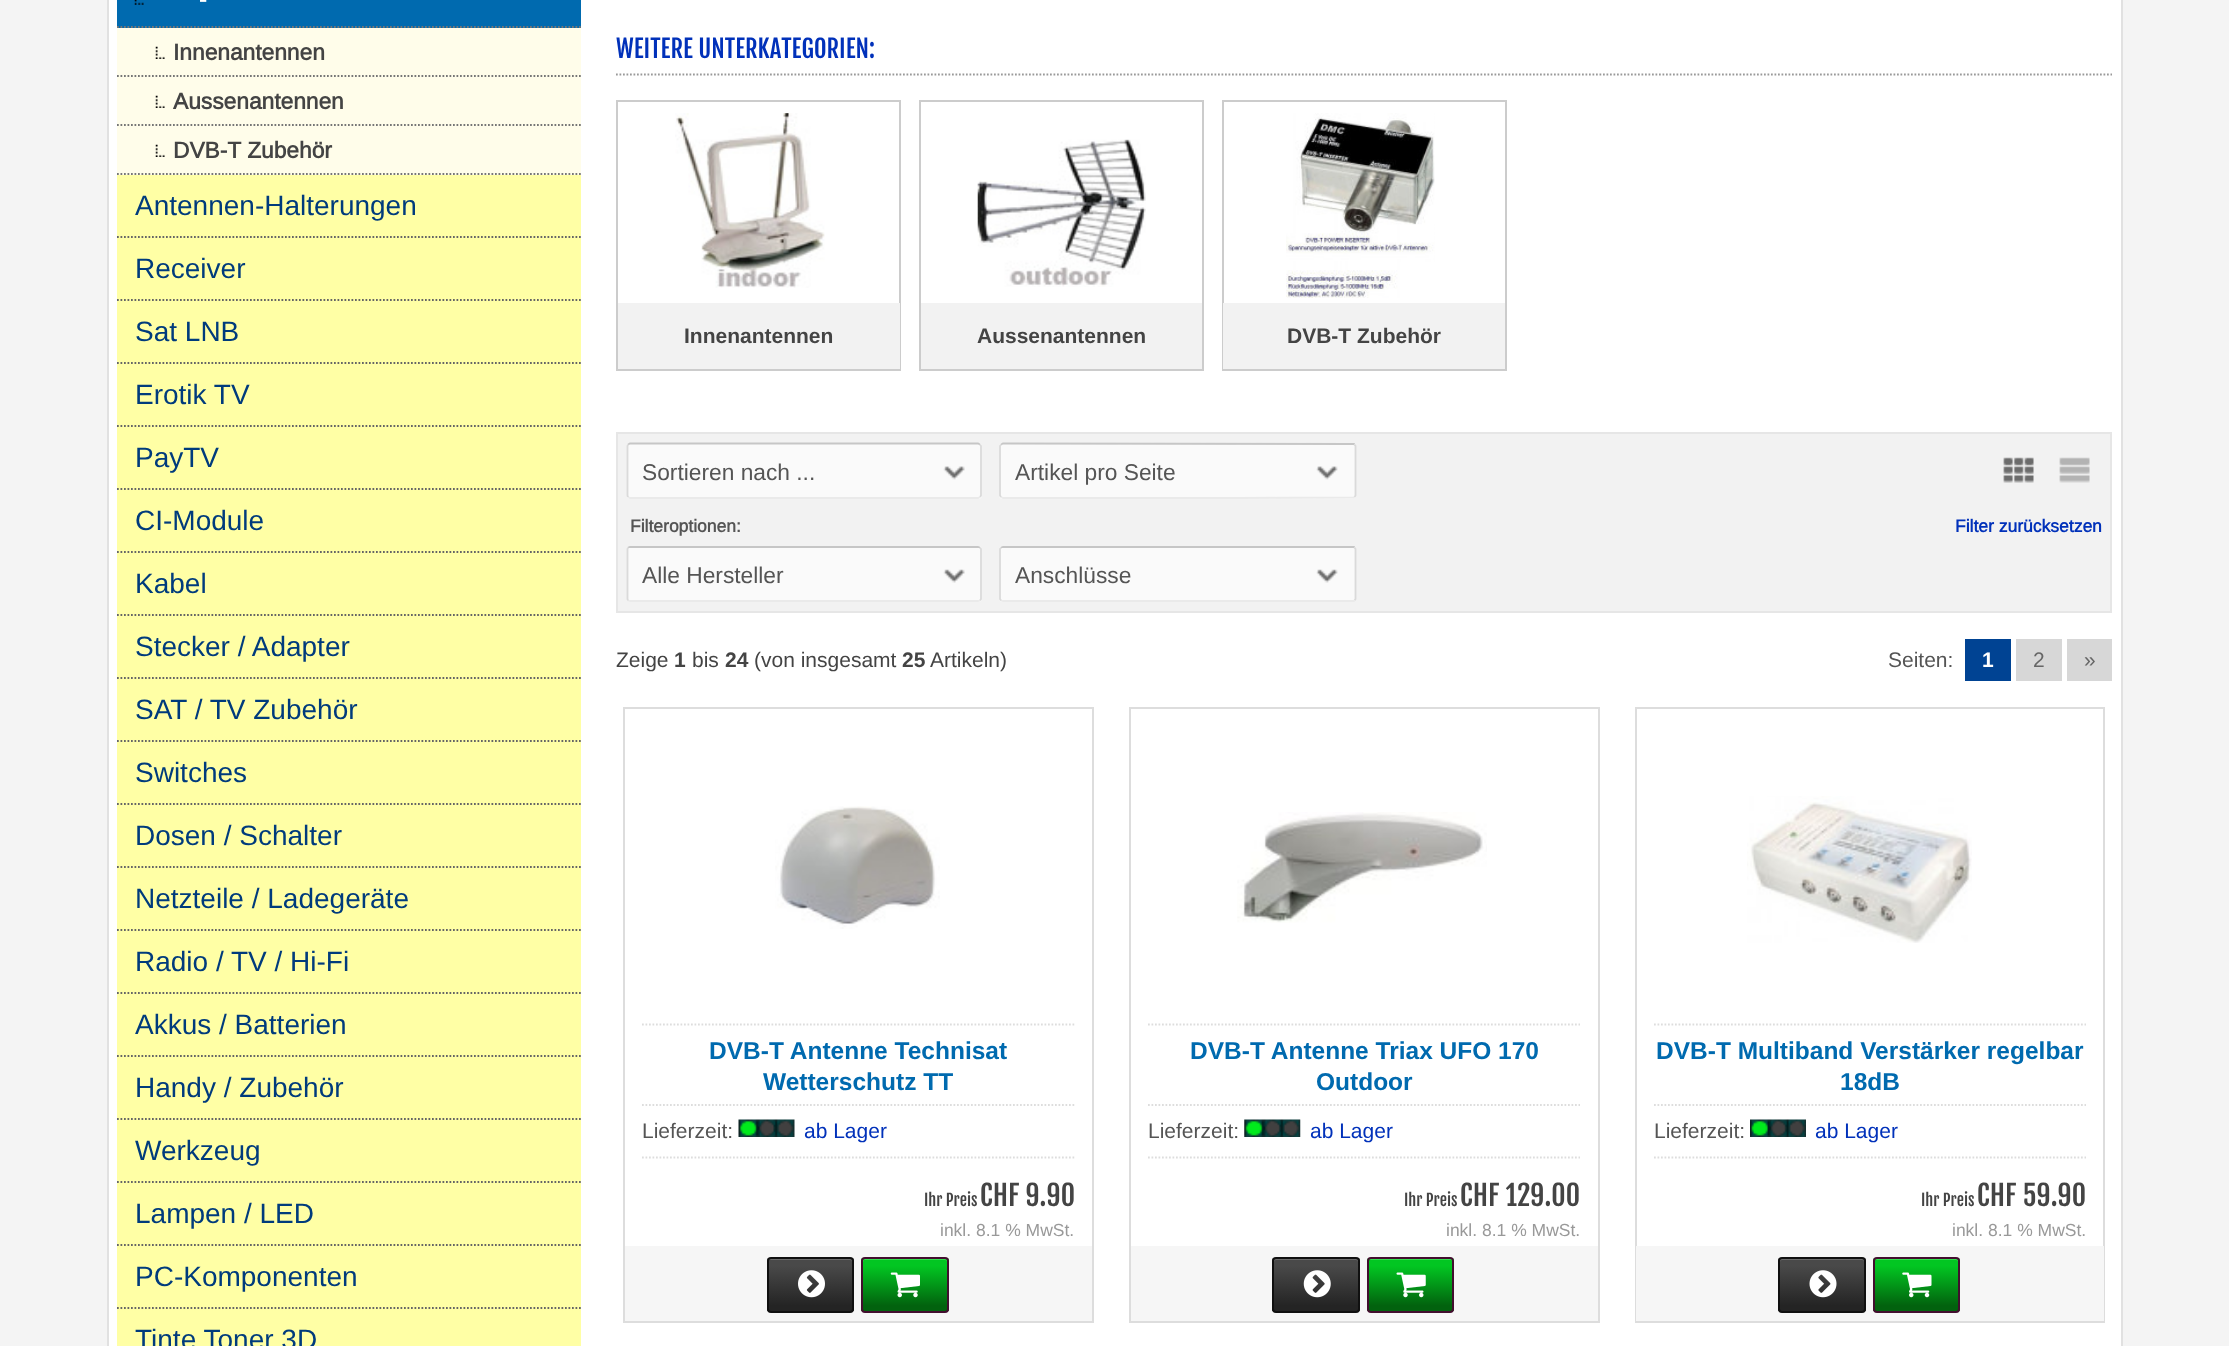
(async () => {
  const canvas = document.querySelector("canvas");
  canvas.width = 2229;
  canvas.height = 1346;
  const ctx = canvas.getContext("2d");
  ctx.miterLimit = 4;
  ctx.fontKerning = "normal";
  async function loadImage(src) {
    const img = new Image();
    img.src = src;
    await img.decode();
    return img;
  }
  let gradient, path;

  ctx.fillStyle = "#f4f4f4";
  ctx.fillRect(0, 0, 2229, 1346);
  for (const [x, y, w, h, color] of [
    [109, 0, 2012, 1346, "#ffffff"],
    [2121, 0, 2, 1346, "#e1e1e1"],
    [107, 0, 2, 1346, "#e1e1e1"],
    [117, 0, 464, 28, "#006aaf"],
  ]) {
    ctx.fillStyle = color;
    ctx.fillRect(x, y, w, h);
  }
  ctx.drawImage(await loadImage("img/1.png"), 134, 0, 10, 5);
  path = new Path2D("M117 27H581");
  ctx.strokeStyle = "#767676";
  ctx.lineWidth = 1.8;
  ctx.setLineDash([1.75, 1.75]);
  ctx.stroke(path);
  ctx.fillStyle = "#fffdea";
  ctx.fillRect(117, 28, 464, 147);
  ctx.drawImage(await loadImage("img/2.png"), 155, 46, 10, 13);
  path = new Path2D("M117 76H581");
  ctx.stroke(path);
  ctx.drawImage(await loadImage("img/2.png"), 155, 95, 10, 13);
  path = new Path2D("M117 125H581");
  ctx.stroke(path);
  ctx.drawImage(await loadImage("img/2.png"), 155, 144, 10, 13);
  path = new Path2D("M117 174H581");
  ctx.stroke(path);
  ctx.fillStyle = "#ffffa5";
  ctx.fillRect(117, 175, 464, 1171);
  path = new Path2D("M117 237H581");
  ctx.strokeStyle = "#656565";
  ctx.stroke(path);
  path = new Path2D("M117 300H581");
  ctx.stroke(path);
  path = new Path2D("M117 363H581");
  ctx.stroke(path);
  path = new Path2D("M117 426H581");
  ctx.stroke(path);
  path = new Path2D("M117 489H581");
  ctx.stroke(path);
  path = new Path2D("M117 552H581");
  ctx.stroke(path);
  path = new Path2D("M117 615H581");
  ctx.stroke(path);
  path = new Path2D("M117 678H581");
  ctx.stroke(path);
  path = new Path2D("M117 741H581");
  ctx.stroke(path);
  path = new Path2D("M117 804H581");
  ctx.stroke(path);
  path = new Path2D("M117 867H581");
  ctx.stroke(path);
  path = new Path2D("M117 930H581");
  ctx.stroke(path);
  path = new Path2D("M117 993H581");
  ctx.stroke(path);
  path = new Path2D("M117 1056H581");
  ctx.stroke(path);
  path = new Path2D("M117 1119H581");
  ctx.stroke(path);
  path = new Path2D("M117 1182H581");
  ctx.stroke(path);
  path = new Path2D("M117 1245H581");
  ctx.stroke(path);
  path = new Path2D("M117 1308H581");
  ctx.stroke(path);
  path = new Path2D("M616 74.5H2112");
  ctx.strokeStyle = "#999999";
  ctx.stroke(path);
  ctx.strokeStyle = "#cccccc";
  ctx.lineWidth = 2;
  ctx.setLineDash([]);
  ctx.strokeRect(617, 101, 283, 269);
  ctx.drawImage(await loadImage("img/3.png"), 675, 113, 150, 175);
  ctx.fillStyle = "#f2f2f2";
  ctx.fillRect(618, 303, 282, 66);
  ctx.strokeRect(920, 101, 283, 269);
  ctx.drawImage(await loadImage("img/4.png"), 977, 139, 169, 148);
  ctx.fillRect(921, 303, 281, 66);
  ctx.strokeRect(1223, 101, 283, 269);
  ctx.drawImage(await loadImage("img/5.png"), 1286, 113, 149, 185);
  ctx.fillRect(1223, 303, 282, 66);
  ctx.beginPath();
  ctx.rect(617, 433, 1494, 179);
  ctx.fill();
  ctx.strokeStyle = "#e6e6e6";
  ctx.stroke();
  ctx.fillStyle = "#fafafa";
  ctx.beginPath();
  ctx.roundRect(627, 443, 355, 56, 4);
  ctx.fill();
  path = new Path2D("M628 444.5L630 443.5H978L980 444.5");
  ctx.strokeStyle = "#c6c6c6";
  ctx.lineWidth = 1.8;
  ctx.stroke(path);
  path = new Path2D("M980 444.5L981 446V495.5L980 497");
  ctx.strokeStyle = "#dadada";
  ctx.stroke(path);
  path = new Path2D("M980 497L978 498H630L628 497");
  ctx.strokeStyle = "#eaeaea";
  ctx.stroke(path);
  path = new Path2D("M628 497L627.5 495.5V446L628 444.5");
  ctx.strokeStyle = "#dadada";
  ctx.stroke(path);
  ctx.drawImage(await loadImage("img/6.png"), 943, 466, 22, 14);
  ctx.beginPath();
  ctx.roundRect(999, 443, 357, 56, 4);
  ctx.fill();
  path = new Path2D("M1001 444.5L1003 443.5L1354 444L1354.5 444.5");
  ctx.strokeStyle = "#c6c6c6";
  ctx.stroke(path);
  path = new Path2D("M1354.5 444.5L1355.5 446V495.5L1354.5 497");
  ctx.strokeStyle = "#dadada";
  ctx.stroke(path);
  path = new Path2D("M1354.5 497L1354 497.5L1236 498H1003L1001 497");
  ctx.strokeStyle = "#eaeaea";
  ctx.stroke(path);
  path = new Path2D("M1001 497L1000 495.5V446L1001 444.5");
  ctx.strokeStyle = "#dadada";
  ctx.stroke(path);
  ctx.drawImage(await loadImage("img/7.png"), 1316, 466, 22, 14);
  ctx.drawImage(await loadImage("img/8.png"), 2003, 457, 31, 26);
  ctx.drawImage(await loadImage("img/9.png"), 2059, 457, 31, 26);
  ctx.beginPath();
  ctx.roundRect(627, 546, 355, 56, 4);
  ctx.fill();
  path = new Path2D("M628 547.5L630 547H978L980 547.5");
  ctx.strokeStyle = "#c6c6c6";
  ctx.stroke(path);
  path = new Path2D("M980 547.5L981 549V599L980 600.5");
  ctx.strokeStyle = "#dadada";
  ctx.stroke(path);
  path = new Path2D("M980 600.5L978 601H630L628 600.5");
  ctx.strokeStyle = "#eaeaea";
  ctx.stroke(path);
  path = new Path2D("M628 600.5L627.5 599V549L628 547.5");
  ctx.strokeStyle = "#dadada";
  ctx.stroke(path);
  ctx.drawImage(await loadImage("img/10.png"), 943, 569, 22, 14);
  ctx.beginPath();
  ctx.roundRect(999, 546, 357, 56, 4);
  ctx.fill();
  path = new Path2D("M1001 547.5L1003 547H1354L1354.5 547.5");
  ctx.strokeStyle = "#c6c6c6";
  ctx.stroke(path);
  path = new Path2D("M1354.5 547.5L1355.5 549V599L1354.5 600.5");
  ctx.strokeStyle = "#dadada";
  ctx.stroke(path);
  path = new Path2D("M1354.5 600.5L1354 601H1236H1003L1001 600.5");
  ctx.strokeStyle = "#eaeaea";
  ctx.stroke(path);
  path = new Path2D("M1001 600.5L1000 599V549L1001 547.5");
  ctx.strokeStyle = "#dadada";
  ctx.stroke(path);
  ctx.drawImage(await loadImage("img/11.png"), 1316, 569, 22, 14);
  for (const [x, y, w, h, color] of [
    [1965, 639, 46, 42, "#004393"],
    [2016, 639, 46, 42, "#d7d7d7"],
    [2067, 639, 45, 42, "#d7d7d7"],
  ]) {
    ctx.fillStyle = color;
    ctx.fillRect(x, y, w, h);
  }
  ctx.strokeStyle = "#dddddd";
  ctx.lineWidth = 2;
  ctx.strokeRect(624, 708, 469, 614);
  ctx.drawImage(await loadImage("img/12.png"), 775, 806, 165, 123);
  path = new Path2D("M642 1024.5H1074.5");
  ctx.lineWidth = 1.8;
  ctx.setLineDash([1.75, 1.75]);
  ctx.stroke(path);
  path = new Path2D("M642 1105H1074.5");
  ctx.stroke(path);
  path = new Path2D("M642 1157.5H1074.5");
  ctx.stroke(path);
  ctx.drawImage(await loadImage("img/13.png"), 738, 1119, 57, 18);
  ctx.fillStyle = "#f6f6f6";
  ctx.fillRect(625, 1246, 467, 75);
  ctx.save();
  ctx.beginPath();
  ctx.roundRect(767, 1257, 87, 56, 4);
  ctx.clip();
  gradient = ctx.createLinearGradient(768, 1258, 768, 1311);
  gradient.addColorStop(0.15, "#494949");
  gradient.addColorStop(0.9, "#242424");
  ctx.fillStyle = gradient;
  ctx.fillRect(767, 1258, 87, 53);
  ctx.restore();
  ctx.fillStyle = "#6b6b6b";
  path = new Path2D("M770 1260H850C851 1260 852 1261 852 1262V1260C852 1259 851 1258 850 1258H770C769 1258 768 1259 768 1260V1262C768 1261 769 1260 770 1260Z");
  ctx.fill(path);
  ctx.beginPath();
  ctx.roundRect(768, 1258, 85, 54, 3);
  ctx.strokeStyle = "#101010";
  ctx.lineWidth = 2;
  ctx.setLineDash([]);
  ctx.stroke();
  ctx.drawImage(await loadImage("img/14.png"), 798, 1270, 27, 28);
  ctx.save();
  ctx.beginPath();
  ctx.roundRect(861, 1257, 88, 56, 4);
  ctx.clip();
  gradient = ctx.createLinearGradient(863, 1258, 863, 1311);
  gradient.addColorStop(0.15, "#02c622");
  gradient.addColorStop(0.9, "#02620e");
  ctx.fillStyle = gradient;
  ctx.fillRect(861, 1258, 88, 53);
  ctx.restore();
  ctx.fillStyle = "#32e04f";
  path = new Path2D("M864 1260H945C946 1260 947 1261 947 1262V1260C947 1259 946 1258 945 1258H865C864 1258 863 1259 863 1260V1262Z");
  ctx.fill(path);
  ctx.beginPath();
  ctx.roundRect(862, 1258, 86, 54, 3);
  ctx.strokeStyle = "#420e2e";
  ctx.stroke();
  ctx.drawImage(await loadImage("img/15.png"), 890, 1272, 30, 26);
  ctx.strokeStyle = "#dddddd";
  ctx.strokeRect(1130, 708, 469, 614);
  ctx.drawImage(await loadImage("img/16.png"), 1237, 812, 250, 111);
  path = new Path2D("M1148 1024.5H1580");
  ctx.lineWidth = 1.8;
  ctx.setLineDash([1.75, 1.75]);
  ctx.stroke(path);
  path = new Path2D("M1148 1105H1580");
  ctx.stroke(path);
  path = new Path2D("M1148 1157.5H1580");
  ctx.stroke(path);
  ctx.drawImage(await loadImage("img/17.png"), 1244, 1119, 57, 18);
  ctx.fillStyle = "#f6f6f6";
  ctx.fillRect(1131, 1246, 467, 75);
  ctx.save();
  ctx.beginPath();
  ctx.roundRect(1272, 1257, 88, 56, 4);
  ctx.clip();
  gradient = ctx.createLinearGradient(1274, 1258, 1274, 1311);
  gradient.addColorStop(0.15, "#494949");
  gradient.addColorStop(0.9, "#242424");
  ctx.fillStyle = gradient;
  ctx.fillRect(1272, 1258, 88, 53);
  ctx.restore();
  ctx.fillStyle = "#6b6b6b";
  path = new Path2D("M1276 1260H1356C1357 1260 1358 1261 1358 1262V1260C1358 1259 1357 1258 1356 1258H1276C1275 1258 1274 1259 1274 1260V1262C1274 1261 1275 1260 1276 1260Z");
  ctx.fill(path);
  ctx.beginPath();
  ctx.roundRect(1273, 1258, 86, 54, 3);
  ctx.strokeStyle = "#101010";
  ctx.lineWidth = 2;
  ctx.setLineDash([]);
  ctx.stroke();
  ctx.drawImage(await loadImage("img/18.png"), 1303, 1270, 28, 28);
  ctx.save();
  ctx.beginPath();
  ctx.roundRect(1367, 1257, 87, 56, 4);
  ctx.clip();
  gradient = ctx.createLinearGradient(1369, 1258, 1369, 1311);
  gradient.addColorStop(0.15, "#02c622");
  gradient.addColorStop(0.9, "#02620e");
  ctx.fillStyle = gradient;
  ctx.fillRect(1367, 1258, 87, 53);
  ctx.restore();
  ctx.fillStyle = "#32e04f";
  path = new Path2D("M1370 1260H1451C1452 1260 1452 1261 1452 1262V1311C1453 1310 1453 1310 1453 1309V1260C1453 1259 1452 1258 1451 1258H1371C1370 1258 1369 1259 1369 1260Z");
  ctx.fill(path);
  ctx.beginPath();
  ctx.roundRect(1368, 1258, 85, 54, 3);
  ctx.strokeStyle = "#420e2e";
  ctx.stroke();
  ctx.drawImage(await loadImage("img/19.png"), 1396, 1272, 30, 26);
  ctx.strokeStyle = "#dddddd";
  ctx.strokeRect(1636, 708, 468, 614);
  ctx.drawImage(await loadImage("img/20.png"), 1747, 796, 225, 147);
  path = new Path2D("M1654 1024.5H2086");
  ctx.lineWidth = 1.8;
  ctx.setLineDash([1.75, 1.75]);
  ctx.stroke(path);
  path = new Path2D("M1654 1105H2086");
  ctx.stroke(path);
  path = new Path2D("M1654 1157.5H2086");
  ctx.stroke(path);
  ctx.drawImage(await loadImage("img/21.png"), 1750, 1119, 56, 18);
  ctx.fillStyle = "#f6f6f6";
  ctx.fillRect(1636, 1246, 468, 75);
  ctx.save();
  ctx.beginPath();
  ctx.roundRect(1778, 1257, 88, 56, 4);
  ctx.clip();
  gradient = ctx.createLinearGradient(1780, 1258, 1780, 1311);
  gradient.addColorStop(0.15, "#494949");
  gradient.addColorStop(0.9, "#242424");
  ctx.fillStyle = gradient;
  ctx.fillRect(1778, 1258, 88, 53);
  ctx.restore();
  ctx.fillStyle = "#6b6b6b";
  path = new Path2D("M1782 1260H1862C1863 1260 1864 1261 1864 1262V1260C1864 1259 1863 1258 1862 1258H1782C1781 1258 1780 1259 1780 1260V1262C1780 1261 1781 1260 1782 1260Z");
  ctx.fill(path);
  ctx.beginPath();
  ctx.roundRect(1779, 1258, 86, 54, 3);
  ctx.strokeStyle = "#101010";
  ctx.lineWidth = 2;
  ctx.setLineDash([]);
  ctx.stroke();
  ctx.drawImage(await loadImage("img/22.png"), 1809, 1270, 28, 28);
  ctx.save();
  ctx.beginPath();
  ctx.roundRect(1873, 1257, 87, 56, 4);
  ctx.clip();
  gradient = ctx.createLinearGradient(1874, 1258, 1874, 1311);
  gradient.addColorStop(0.15, "#02c622");
  gradient.addColorStop(0.9, "#02620e");
  ctx.fillStyle = gradient;
  ctx.fillRect(1873, 1258, 87, 53);
  ctx.restore();
  ctx.fillStyle = "#32e04f";
  path = new Path2D("M1876 1260H1956C1957 1260 1958 1261 1958 1262V1260C1958 1259 1957 1258 1956 1258H1876C1875 1258 1874 1259 1874 1260V1262C1874 1261 1875 1260 1876 1260Z");
  ctx.fill(path);
  ctx.beginPath();
  ctx.roundRect(1874, 1258, 85, 54, 3);
  ctx.strokeStyle = "#420e2e";
  ctx.stroke();
  ctx.drawImage(await loadImage("img/23.png"), 1902, 1272, 30, 26);
  ctx.font = "bold 22.75px 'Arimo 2'";
  ctx.fillStyle = "#ffffff";
  ctx.fillText("-", 199, 7);
  ctx.fillStyle = "#444444";
  for (const [text, x, y] of [
    ["Innenantennen", 173, 60],
    ["Aussenantennen", 173, 109],
    ["DVB-T Zubehör", 173, 158],
  ]) {
    ctx.fillText(text, x, y);
  }
  ctx.font = "28px Arimo";
  ctx.fillStyle = "#003b7c";
  for (const [text, x, y] of [
    ["Antennen-Halterungen", 135, 215],
    ["Receiver", 135, 278],
    ["Sat LNB", 135, 341],
    ["Erotik TV", 135, 404],
    ["PayTV", 135, 467],
    ["CI-Module", 135, 530],
    ["Kabel", 135, 593],
    ["Stecker / Adapter", 135, 656],
    ["SAT / TV Zubehör", 135, 719],
    ["Switches", 135, 782],
    ["Dosen / Schalter", 135, 845],
    ["Netzteile / Ladegeräte", 135, 908],
    ["Radio / TV / Hi-Fi", 135, 971],
    ["Akkus / Batterien", 135, 1034],
    ["Handy / Zubehör", 135, 1097],
    ["Werkzeug", 135, 1160],
    ["Lampen / LED", 135, 1223],
    ["PC-Komponenten", 135, 1286],
    ["Tinte Toner 3D", 135, 1349],
  ]) {
    ctx.fillText(text, x, y);
  }
  ctx.font = "24.5px Fjalla One";
  ctx.fillStyle = "#0131ba";
  ctx.fillText("WEITERE UNTERKATEGORIEN:", 616, 58);
  ctx.font = "bold 21px Arimo";
  ctx.fillStyle = "#444444";
  for (const [text, x, y] of [
    ["Innenantennen", 684, 343],
    ["Aussenantennen", 977, 343],
    ["DVB-T Zubehör", 1287, 343],
  ]) {
    ctx.fillText(text, x, y);
  }
  ctx.font = "22.75px Arimo";
  ctx.fillStyle = "#555555";
  ctx.fillText("Sortieren nach ...", 642, 480);
  ctx.fillText("Artikel pro Seite", 1015, 480);
  ctx.font = "bold 17.5px 'Arimo 2'";
  ctx.fillText("Filteroptionen:", 630, 532);
  ctx.fillStyle = "#0131ba";
  ctx.fillText("Filter zurücksetzen", 1955, 532);
  ctx.font = "22.75px Arimo";
  ctx.fillStyle = "#555555";
  ctx.fillText("Alle Hersteller", 642, 583);
  ctx.fillText("Anschlüsse", 1015, 583);
  ctx.font = "21px Arimo";
  ctx.fillStyle = "#444444";
  ctx.fillText("Zeige", 616, 667);
  ctx.font = "bold 21px Arimo";
  ctx.fillText("1", 674, 667);
  ctx.font = "21px Arimo";
  ctx.fillText("bis", 692, 667);
  ctx.font = "bold 21px Arimo";
  ctx.fillText("24", 725, 667);
  ctx.font = "21px Arimo";
  ctx.fillText("(von insgesamt", 754, 667);
  ctx.font = "bold 21px Arimo";
  ctx.fillText("25", 902, 667);
  ctx.font = "21px Arimo";
  ctx.fillText("Artikeln)", 930, 667);
  ctx.fillStyle = "#555555";
  ctx.fillText("Seiten:", 1888, 667);
  ctx.font = "bold 21px Arimo";
  ctx.fillStyle = "#ffffff";
  ctx.fillText("1", 1982, 667);
  ctx.font = "21px Arimo";
  ctx.fillStyle = "#666666";
  ctx.fillText("2", 2033, 667);
  ctx.fillText("»", 2084, 667);
  ctx.font = "bold 24.5px Arimo";
  ctx.fillStyle = "#006aaf";
  ctx.fillText("DVB-T Antenne Technisat", 709, 1059);
  ctx.fillText("Wetterschutz TT", 763, 1090);
  ctx.font = "21px Arimo";
  ctx.fillStyle = "#555555";
  ctx.fillText("Lieferzeit:", 642, 1138);
  ctx.fillStyle = "#0131ba";
  ctx.fillText("ab Lager", 804, 1138);
  ctx.font = "16px Fjalla One";
  ctx.fillStyle = "#444444";
  ctx.fillText("Ihr Preis", 924, 1206);
  ctx.font = "28px Fjalla One";
  ctx.fillText("CHF 9.90", 980, 1206);
  ctx.font = "17.5px Arimo";
  ctx.fillStyle = "#999999";
  ctx.fillText("inkl. 8.1 % MwSt.", 940, 1236);
  ctx.font = "bold 24.5px Arimo";
  ctx.fillStyle = "#006aaf";
  ctx.fillText("DVB-T Antenne Triax UFO 170", 1190, 1059);
  ctx.fillText("Outdoor", 1316, 1090);
  ctx.font = "21px Arimo";
  ctx.fillStyle = "#555555";
  ctx.fillText("Lieferzeit:", 1148, 1138);
  ctx.fillStyle = "#0131ba";
  ctx.fillText("ab Lager", 1310, 1138);
  ctx.font = "16px Fjalla One";
  ctx.fillStyle = "#444444";
  ctx.fillText("Ihr Preis", 1404, 1206);
  ctx.font = "28px Fjalla One";
  ctx.fillText("CHF 129.00", 1460, 1206);
  ctx.font = "17.5px Arimo";
  ctx.fillStyle = "#999999";
  ctx.fillText("inkl. 8.1 % MwSt.", 1446, 1236);
  ctx.font = "bold 24.5px Arimo";
  ctx.fillStyle = "#006aaf";
  ctx.fillText("DVB-T Multiband Verstärker regelbar", 1656, 1059);
  ctx.fillText("18dB", 1840, 1090);
  ctx.font = "21px Arimo";
  ctx.fillStyle = "#555555";
  ctx.fillText("Lieferzeit:", 1654, 1138);
  ctx.fillStyle = "#0131ba";
  ctx.fillText("ab Lager", 1815, 1138);
  ctx.font = "16px Fjalla One";
  ctx.fillStyle = "#444444";
  ctx.fillText("Ihr Preis", 1921, 1206);
  ctx.font = "28px Fjalla One";
  ctx.fillText("CHF 59.90", 1977, 1206);
  ctx.font = "17.5px Arimo";
  ctx.fillStyle = "#999999";
  ctx.fillText("inkl. 8.1 % MwSt.", 1952, 1236);
})();
